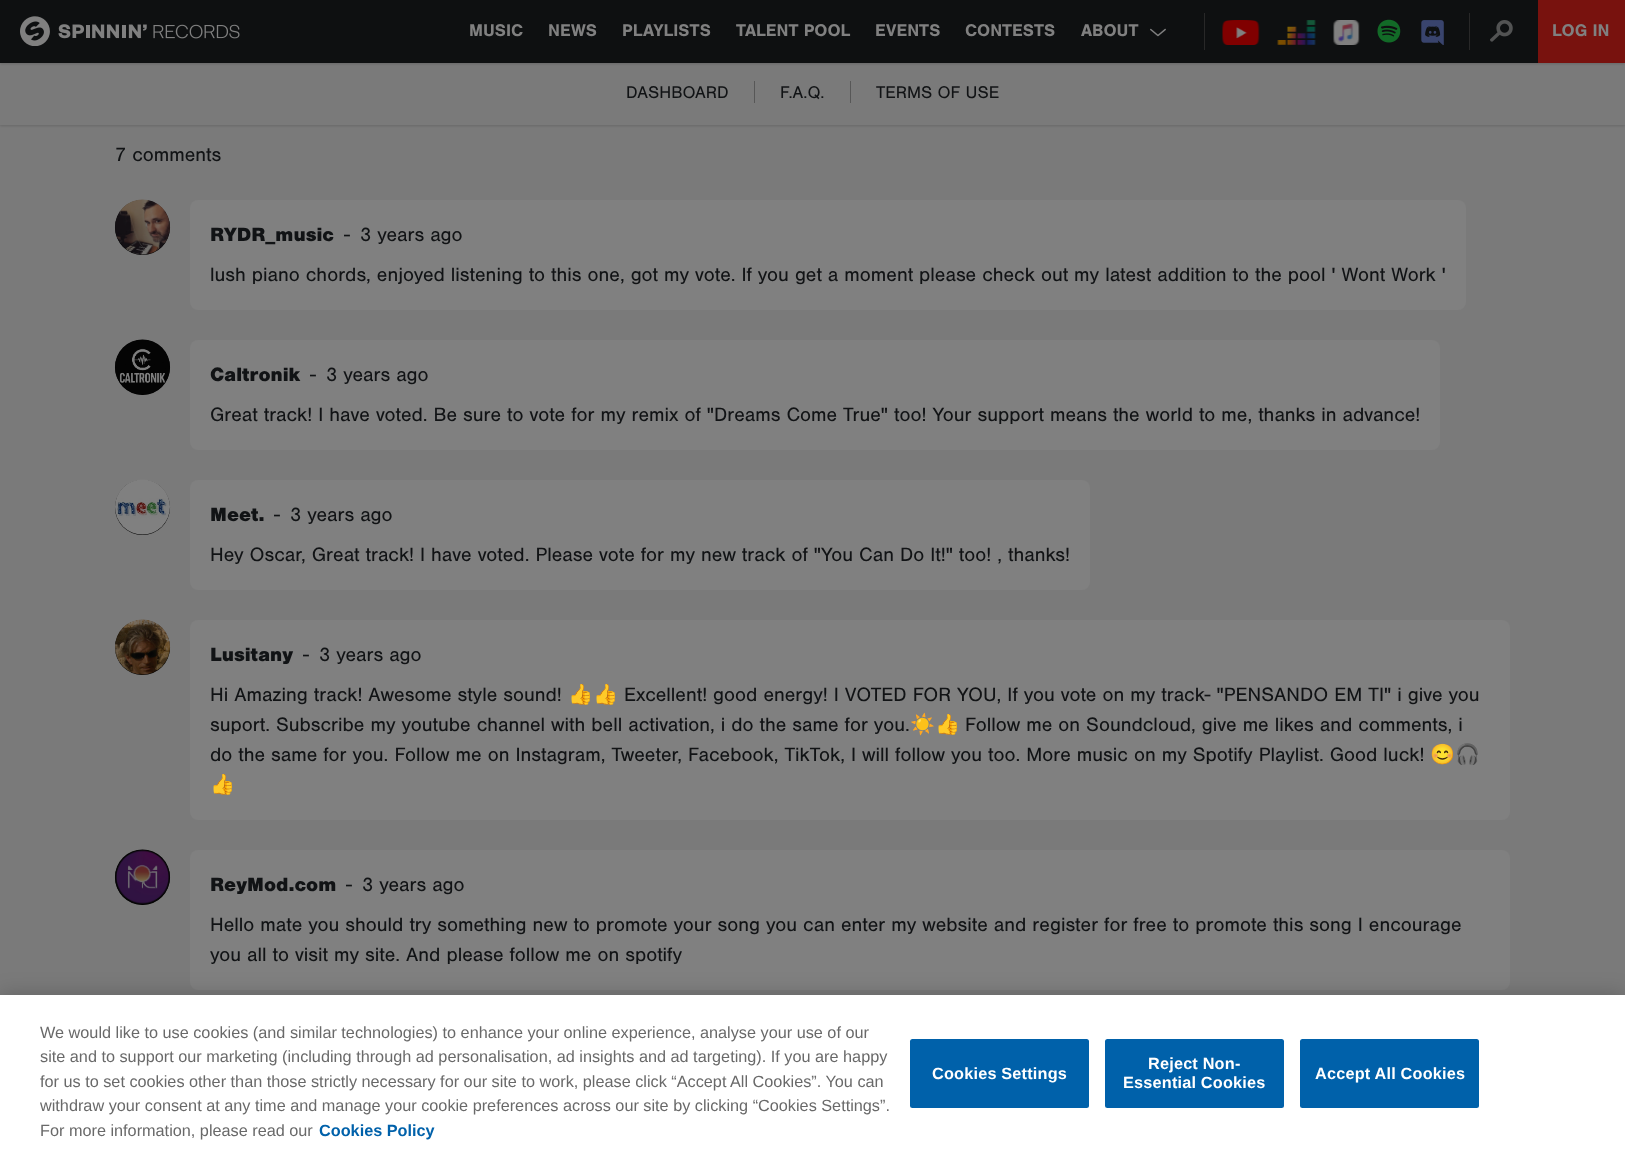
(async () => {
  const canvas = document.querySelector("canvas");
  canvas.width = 1625;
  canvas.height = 1155;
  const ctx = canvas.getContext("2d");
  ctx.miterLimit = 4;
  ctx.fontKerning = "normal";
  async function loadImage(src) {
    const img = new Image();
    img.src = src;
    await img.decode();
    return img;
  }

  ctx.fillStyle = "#7a7a7a";
  ctx.fillRect(0, 0, 1625, 1155);
  ctx.fillStyle = "rgba(0, 0, 0, 0.15)";
  ctx.filter = "blur(1px)";
  ctx.beginPath();
  ctx.rect(0, 64, 1625, 62);
  ctx.fill();
  ctx.filter = "none";
  ctx.fillStyle = "#7a7a7a";
  ctx.fillRect(0, 63, 1625, 62);
  ctx.fillStyle = "rgba(0, 0, 0, 0.15)";
  ctx.filter = "blur(1px)";
  ctx.beginPath();
  ctx.rect(0, 1, 1625, 63);
  ctx.fill();
  ctx.filter = "none";
  ctx.fillStyle = "#0e1011";
  ctx.fillRect(0, 0, 1538, 63);
  ctx.drawImage(await loadImage("img/1.png"), 20, 16, 220, 30);
  ctx.drawImage(await loadImage("img/2.png"), 1150, 28, 16, 9);
  ctx.fillStyle = "#282828";
  ctx.fillRect(1204, 13, 1, 37);
  ctx.drawImage(await loadImage("img/3.png"), 1222, 20, 38, 25);
  ctx.drawImage(await loadImage("img/4.png"), 1277, 20, 39, 25);
  ctx.drawImage(await loadImage("img/5.png"), 1333, 20, 27, 25);
  ctx.drawImage(await loadImage("img/6.png"), 1377, 19, 24, 24);
  ctx.drawImage(await loadImage("img/7.png"), 1421, 20, 23, 25);
  ctx.fillRect(1469, 13, 1, 37);
  ctx.drawImage(await loadImage("img/8.png"), 1490, 20, 23, 22);
  for (const [x, y, w, h, color] of [
    [1538, 0, 87, 63, "#78120e"],
    [754, 81, 1, 22, "#575757"],
    [850, 81, 1, 22, "#575757"],
  ]) {
    ctx.fillStyle = color;
    ctx.fillRect(x, y, w, h);
  }
  ctx.fillStyle = "#000000";
  ctx.beginPath();
  ctx.arc(142.5, 227.5, 27.5, 0, Math.PI * 2);
  ctx.fill();
  ctx.drawImage(await loadImage("img/9.png"), 115, 199, 55, 56);
  ctx.fillStyle = "#808080";
  ctx.beginPath();
  ctx.roundRect(190, 200, 1276, 110, 8);
  ctx.fill();
  ctx.fillStyle = "#000000";
  ctx.beginPath();
  ctx.arc(142.5, 367.5, 27.5, 0, Math.PI * 2);
  ctx.fill();
  ctx.drawImage(await loadImage("img/10.png"), 115, 339, 55, 56);
  ctx.fillStyle = "#808080";
  ctx.beginPath();
  ctx.roundRect(190, 340, 1250, 110, 8);
  ctx.fill();
  ctx.fillStyle = "#000000";
  ctx.beginPath();
  ctx.arc(142.5, 507.5, 27.5, 0, Math.PI * 2);
  ctx.fill();
  ctx.drawImage(await loadImage("img/11.png"), 115, 479, 55, 56);
  ctx.fillStyle = "#808080";
  ctx.beginPath();
  ctx.roundRect(190, 480, 900, 110, 8);
  ctx.fill();
  ctx.fillStyle = "#000000";
  ctx.beginPath();
  ctx.arc(142.5, 647.5, 27.5, 0, Math.PI * 2);
  ctx.fill();
  ctx.drawImage(await loadImage("img/12.png"), 115, 619, 55, 56);
  ctx.fillStyle = "#808080";
  ctx.beginPath();
  ctx.roundRect(190, 620, 1320, 200, 8);
  ctx.fill();
  ctx.fillStyle = "#000000";
  ctx.beginPath();
  ctx.arc(142.5, 877.5, 27.5, 0, Math.PI * 2);
  ctx.fill();
  ctx.drawImage(await loadImage("img/13.png"), 115, 849, 55, 56);
  ctx.fillStyle = "#808080";
  ctx.beginPath();
  ctx.roundRect(190, 850, 1320, 140, 8);
  ctx.fill();
  ctx.fillStyle = "rgba(0, 0, 0, 0.2)";
  ctx.filter = "blur(11px)";
  ctx.beginPath();
  ctx.rect(0, 995, 1625, 160);
  ctx.fill();
  ctx.filter = "none";
  ctx.fillStyle = "#ffffff";
  ctx.fillRect(0, 995, 1625, 160);
  ctx.fillStyle = "#0061aa";
  ctx.beginPath();
  ctx.roundRect(910, 1039, 179, 69, 2.5);
  ctx.fill();
  ctx.beginPath();
  ctx.roundRect(1105, 1039, 179, 69, 2.5);
  ctx.fill();
  ctx.beginPath();
  ctx.roundRect(1300, 1039, 179, 69, 2.5);
  ctx.fill();
  ctx.font = "bold 17.5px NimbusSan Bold";
  ctx.fillStyle = "#808080";
  for (const [text, x, y] of [
    ["MUSIC", 469, 36],
    ["NEWS", 548, 36],
    ["PLAYLISTS", 622, 36],
    ["TALENT POOL", 736, 36],
    ["EVENTS", 875, 36],
    ["CONTESTS", 965, 36],
    ["ABOUT", 1081, 36],
    ["LOG IN", 1552, 36],
  ]) {
    ctx.fillText(text, x, y);
  }
  ctx.font = "17.5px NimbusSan";
  ctx.fillStyle = "#111315";
  for (const [text, x, y] of [
    ["DASHBOARD", 626, 98],
    ["F.A.Q.", 780, 98],
    ["TERMS OF USE", 876, 98],
  ]) {
    ctx.fillText(text, x, y);
  }
  ctx.font = "20px NimbusSan";
  ctx.fillText("7 comments", 115, 161);
  ctx.font = "20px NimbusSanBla";
  ctx.fillText("RYDR_music", 210, 241);
  ctx.font = "20px NimbusSan";
  for (const [text, x, y] of [
    ["-", 344, 241],
    ["3 years ago", 360, 241],
    ["lush piano chords, enjoyed listening to this one, got my vote. If you get a moment please check out my latest addition to the pool ' Wont Work '", 210, 281],
  ]) {
    ctx.fillText(text, x, y);
  }
  ctx.font = "20px NimbusSanBla";
  ctx.fillText("Caltronik", 210, 381);
  ctx.font = "20px NimbusSan";
  for (const [text, x, y] of [
    ["-", 310, 381],
    ["3 years ago", 326, 381],
    ["Great track! I have voted. Be sure to vote for my remix of \"Dreams Come True\" too! Your support means the world to me, thanks in advance!", 210, 421],
  ]) {
    ctx.fillText(text, x, y);
  }
  ctx.font = "20px NimbusSanBla";
  ctx.fillText("Meet.", 210, 521);
  ctx.font = "20px NimbusSan";
  for (const [text, x, y] of [
    ["-", 274, 521],
    ["3 years ago", 290, 521],
    ["Hey Oscar, Great track! I have voted. Please vote for my new track of \"You Can Do It!\" too! , thanks!", 210, 561],
  ]) {
    ctx.fillText(text, x, y);
  }
  ctx.font = "20px NimbusSanBla";
  ctx.fillText("Lusitany", 210, 661);
  ctx.font = "20px NimbusSan";
  for (const [text, x, y] of [
    ["-", 303, 661],
    ["3 years ago", 319, 661],
    ["Hi Amazing track! Awesome style sound!", 210, 701],
  ]) {
    ctx.fillText(text, x, y);
  }
  ctx.font = "20px Noto Color Emoji";
  ctx.fillText("👍👍", 568, 701);
  ctx.font = "20px NimbusSan";
  ctx.fillText("Excellent! good energy! I VOTED FOR YOU, If you vote on my track- \"PENSANDO EM TI\" i give you", 624, 701);
  ctx.fillText("suport. Subscribe my youtube channel with bell activation, i do the same for you.", 210, 731);
  ctx.font = "20px Noto Color Emoji";
  ctx.fillText("☀️👍", 910, 731);
  ctx.font = "20px NimbusSan";
  ctx.fillText("Follow me on Soundcloud, give me likes and comments, i", 965, 731);
  ctx.fillText("do the same for you. Follow me on Instagram, Tweeter, Facebook, TikTok, I will follow you too. More music on my Spotify Playlist. Good luck!", 210, 761);
  ctx.font = "20px Noto Color Emoji";
  ctx.fillText("😊🎧", 1430, 761);
  ctx.fillText("👍", 210, 791);
  ctx.font = "20px NimbusSanBla";
  ctx.fillText("ReyMod.com", 210, 891);
  ctx.font = "20px NimbusSan";
  for (const [text, x, y] of [
    ["-", 346, 891],
    ["3 years ago", 362, 891],
    ["Hello mate you should try something new to promote your song you can enter my website and register for free to promote this song I encourage", 210, 931],
    ["you all to visit my site. And please follow me on spotify", 210, 961],
  ]) {
    ctx.fillText(text, x, y);
  }
  ctx.font = "16.25px Liberation Sans";
  ctx.fillStyle = "#696969";
  for (const [text, x, y] of [
    ["We would like to use cookies (and similar technologies) to enhance your online experience, analyse your use of our", 40, 1038],
    ["site and to support our marketing (including through ad personalisation, ad insights and ad targeting). If you are happy", 40, 1062],
    ["for us to set cookies other than those strictly necessary for our site to work, please click “Accept All Cookies”. You can", 40, 1087],
    ["withdraw your consent at any time and manage your cookie preferences across our site by clicking “Cookies Settings”.", 40, 1111],
    ["For more information, please read our", 40, 1136],
  ]) {
    ctx.fillText(text, x, y);
  }
  ctx.font = "bold 16.25px Liberation Sans";
  ctx.fillStyle = "#0061aa";
  ctx.fillText("Cookies Policy", 319, 1136);
  ctx.letterSpacing = "0.2px";
  ctx.fillStyle = "#ffffff";
  for (const [text, x, y] of [
    ["Cookies Settings", 932, 1079],
    ["Reject Non-", 1148, 1069],
    ["Essential Cookies", 1123, 1088],
    ["Accept All Cookies", 1315, 1079],
  ]) {
    ctx.fillText(text, x, y);
  }
})();
